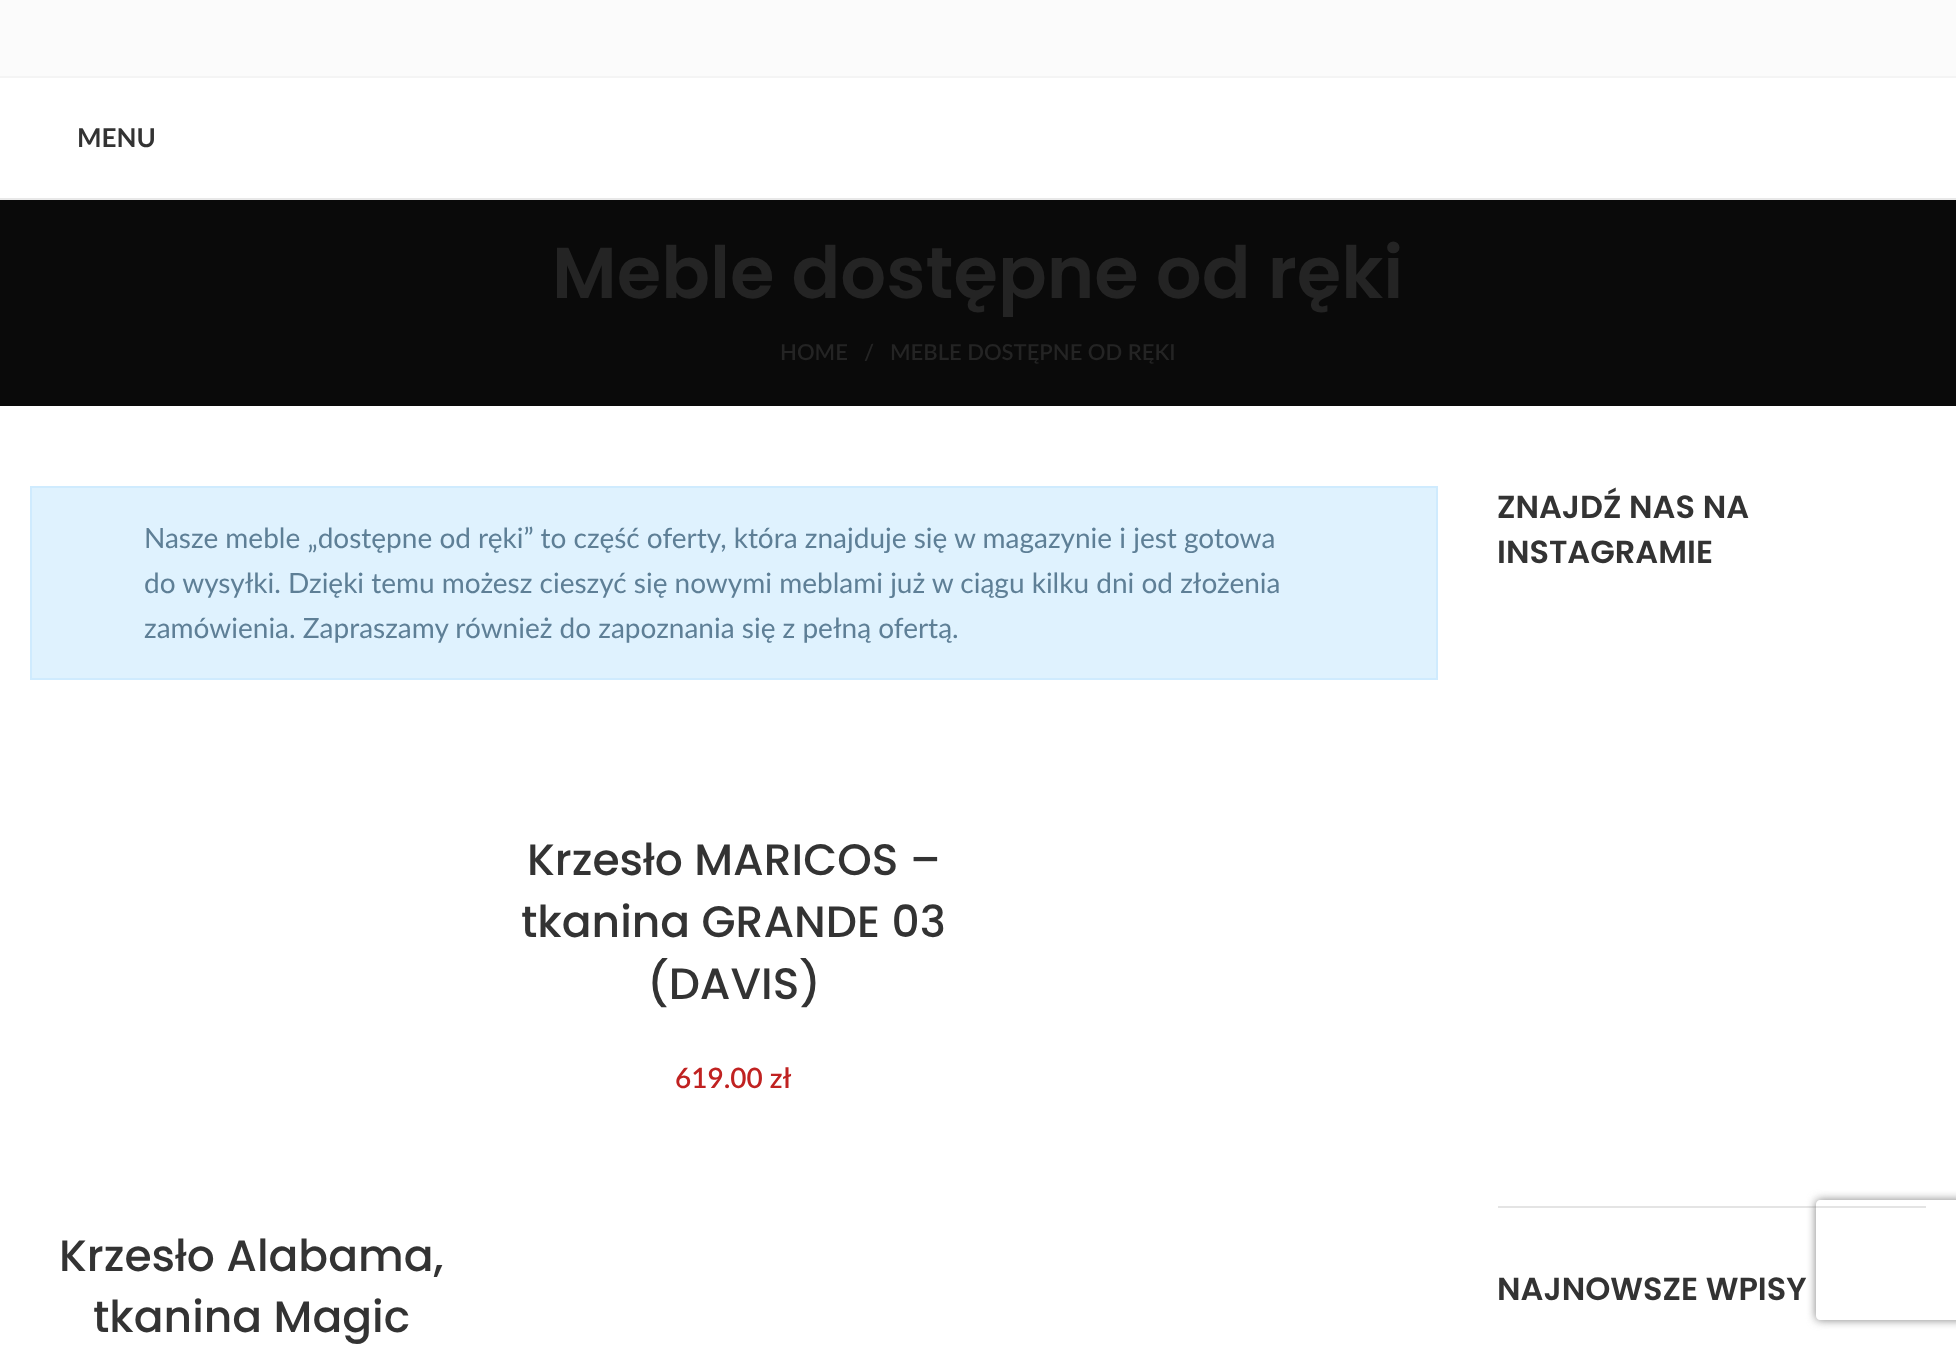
(async () => {
  const canvas = document.querySelector("canvas");
  canvas.width = 1956;
  canvas.height = 1347;
  const ctx = canvas.getContext("2d");
  ctx.miterLimit = 4;
  ctx.fontKerning = "normal";
  let path;

  ctx.fillStyle = "#ffffff";
  ctx.fillRect(0, 0, 1956, 1347);
  for (const [x, y, w, h, color] of [
    [0, 0, 1956, 76, "#fbfbfb"],
    [0, 76, 1956, 2, "#f4f4f4"],
    [0, 198, 1956, 2, "#e8e8e8"],
    [0, 200, 1956, 206, "#0a0a0a"],
  ]) {
    ctx.fillStyle = color;
    ctx.fillRect(x, y, w, h);
  }
  ctx.fillStyle = "#dff2fe";
  ctx.beginPath();
  ctx.rect(31, 487, 1406, 192);
  ctx.fill();
  ctx.strokeStyle = "#cfebfe";
  ctx.lineWidth = 2;
  ctx.stroke();
  ctx.fillStyle = "#e4e4e4";
  ctx.fillRect(1498, 1206, 428, 2);
  ctx.save();
  path = new Path2D("M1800 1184H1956V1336H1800ZM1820 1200H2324C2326 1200 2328 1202 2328 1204V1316C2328 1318 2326 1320 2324 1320H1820C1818 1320 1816 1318 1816 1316V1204C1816 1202 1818 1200 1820 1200Z");
  ctx.clip(path, "evenodd");
  ctx.fillStyle = "#808080";
  ctx.filter = "blur(5px)";
  ctx.beginPath();
  ctx.roundRect(1816, 1200, 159, 120, 4);
  ctx.fill();
  ctx.filter = "none";
  ctx.restore();
  ctx.font = "bold 26px Lato";
  ctx.fillStyle = "#333333";
  ctx.fillText("MENU", 77, 147);
  ctx.font = "600 72px Poppins";
  ctx.fillStyle = "#242424";
  ctx.fillText("Meble dostępne od ręki", 552, 298);
  ctx.font = "600 22px Lato";
  for (const [text, x, y] of [
    ["HOME", 780, 360],
    ["/", 864, 360],
    ["MEBLE DOSTĘPNE OD RĘKI", 890, 360],
  ]) {
    ctx.fillText(text, x, y);
  }
  ctx.font = "28px Lato";
  ctx.fillStyle = "#5e7f96";
  for (const [text, x, y] of [
    ["Nasze meble „dostępne od ręki” to część oferty, która znajduje się w magazynie i jest gotowa", 144, 548],
    ["do wysyłki. Dzięki temu możesz cieszyć się nowymi meblami już w ciągu kilku dni od złożenia", 144, 593],
    ["zamówienia. Zapraszamy również do zapoznania się z pełną ofertą.", 144, 638],
  ]) {
    ctx.fillText(text, x, y);
  }
  ctx.font = "500 44px Poppins";
  ctx.fillStyle = "#333333";
  for (const [text, x, y] of [
    ["Krzesło MARICOS –", 527, 875],
    ["tkanina GRANDE 03", 521, 937],
    ["(DAVIS)", 647, 999],
  ]) {
    ctx.fillText(text, x, y);
  }
  ctx.font = "600 28px Lato";
  ctx.fillStyle = "#c02221";
  ctx.fillText("619.00 zł", 675, 1088);
  ctx.font = "500 44px Poppins";
  ctx.fillStyle = "#333333";
  ctx.fillText("Krzesło Alabama,", 59, 1271);
  ctx.fillText("tkanina Magic", 93, 1332);
  ctx.font = "600 32px Poppins";
  for (const [text, x, y] of [
    ["ZNAJDŹ NAS NA", 1497, 518],
    ["INSTAGRAMIE", 1497, 563],
    ["NAJNOWSZE WPISY", 1497, 1300],
  ]) {
    ctx.fillText(text, x, y);
  }
})();
